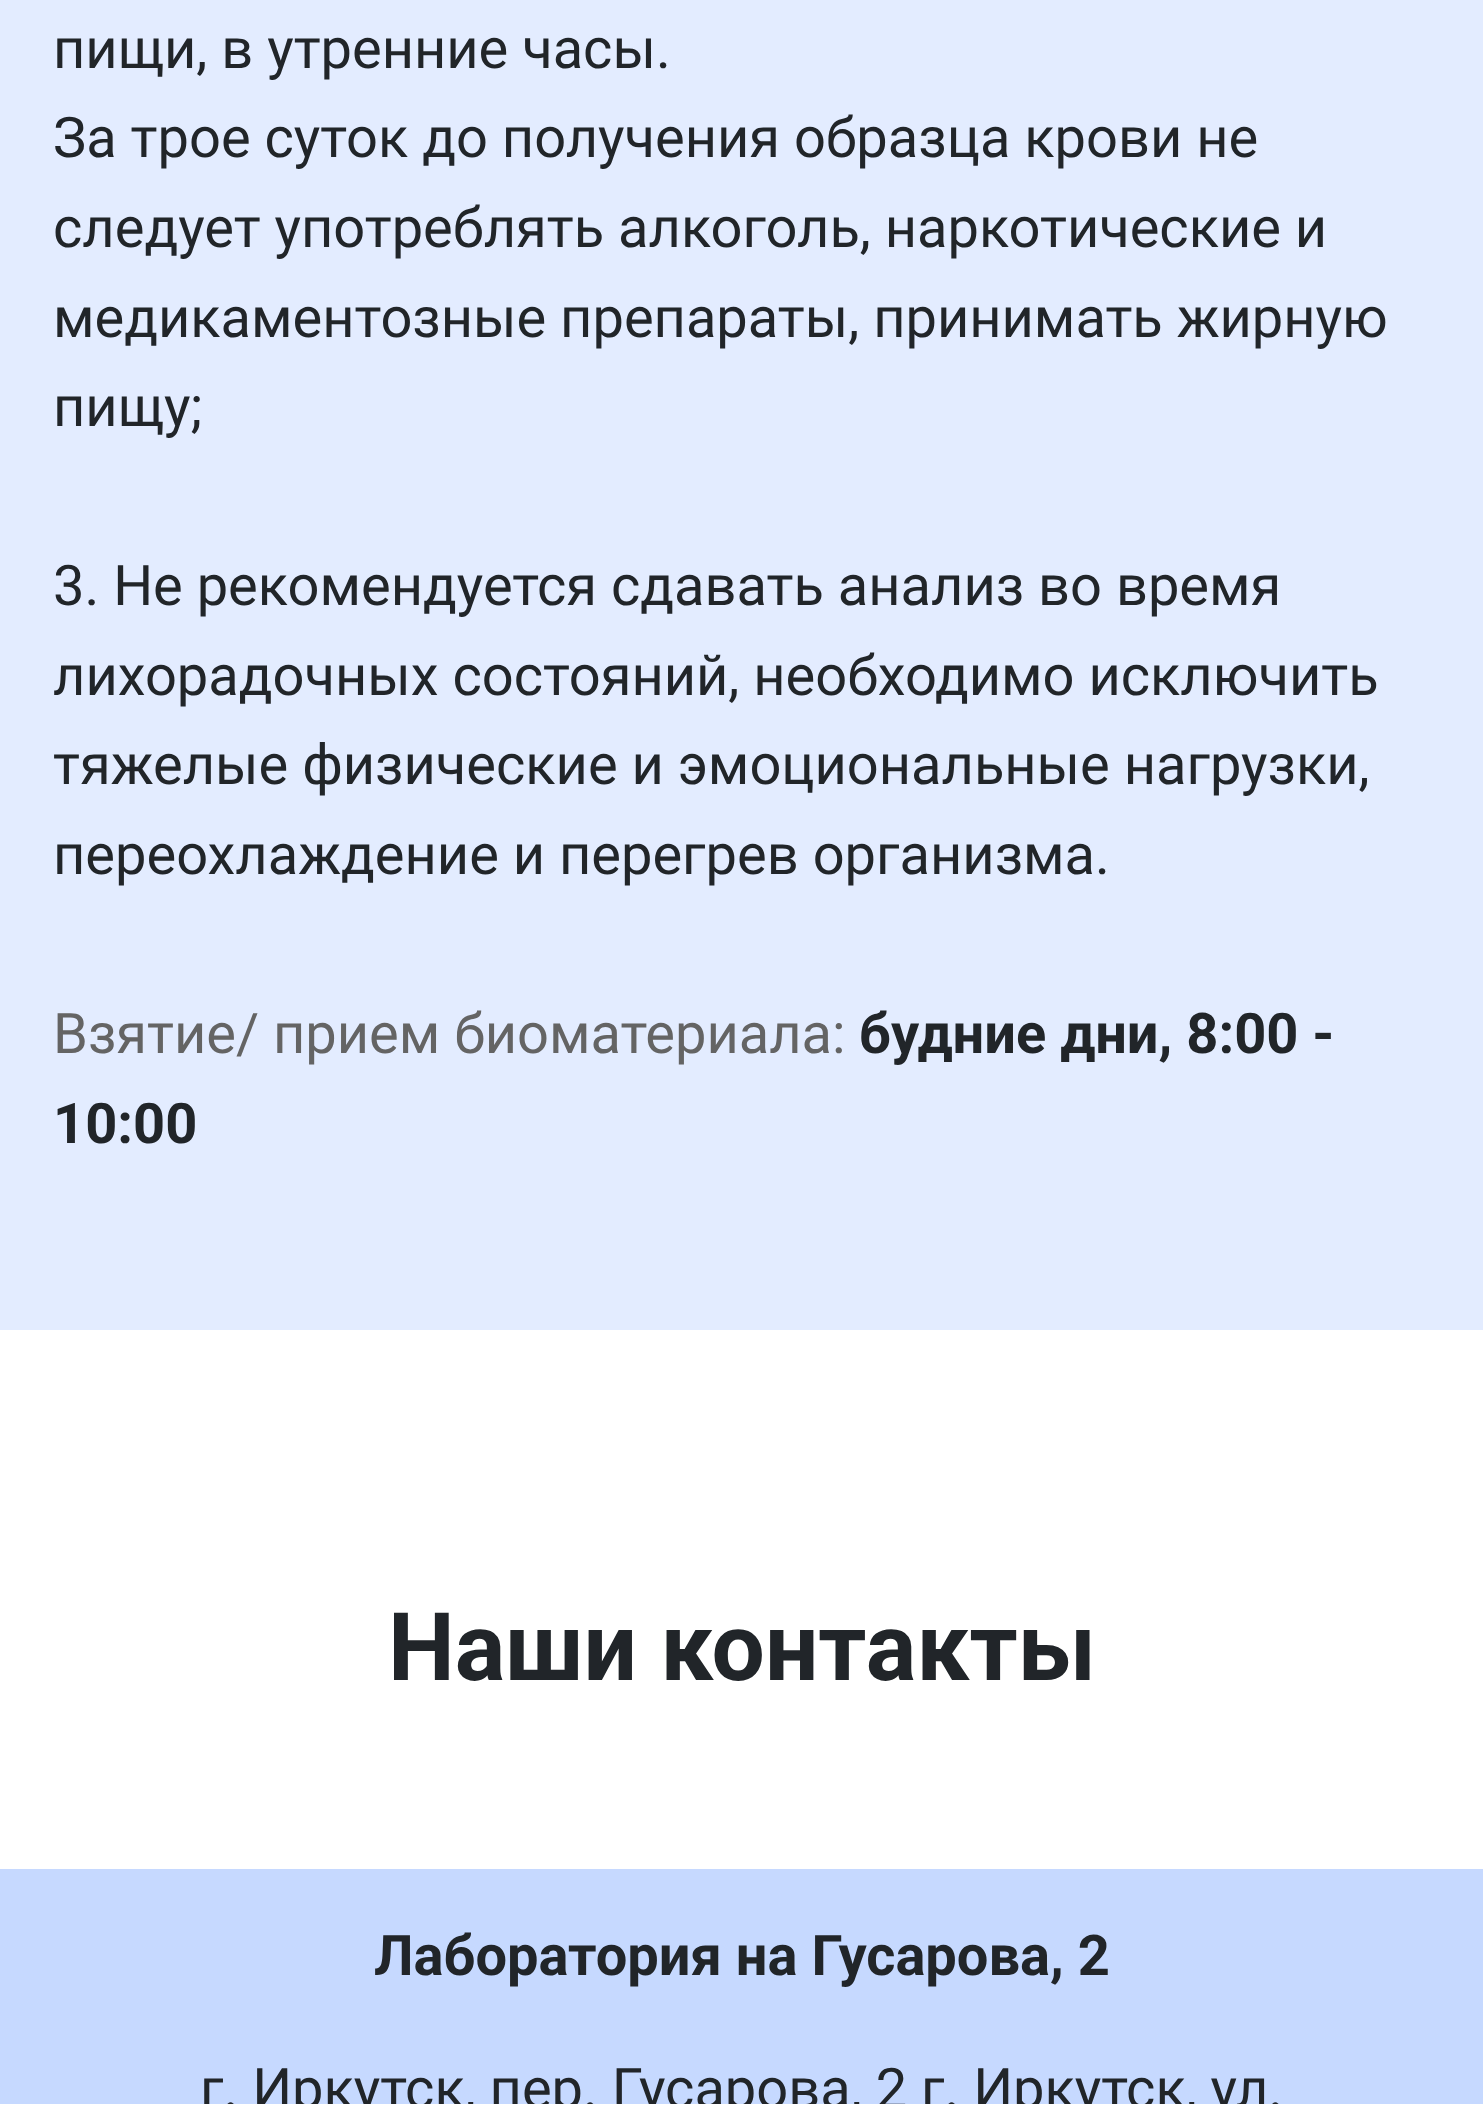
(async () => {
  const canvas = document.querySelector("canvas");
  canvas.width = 1483;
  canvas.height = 2104;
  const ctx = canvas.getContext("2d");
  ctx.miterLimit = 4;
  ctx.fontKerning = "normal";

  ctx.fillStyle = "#ffffff";
  ctx.fillRect(0, 0, 1483, 2104);
  ctx.fillStyle = "#e3ecff";
  ctx.fillRect(0, 0, 1483, 1330);
  ctx.fillStyle = "#c6d9ff";
  ctx.fillRect(0, 1869, 1483, 235);
  ctx.font = "56px Roboto";
  ctx.fillStyle = "#212529";
  for (const [text, x, y] of [
    ["пищи, в утренние часы.", 53, 68],
    ["За трое суток до получения образца крови не", 53, 157],
    ["следует употреблять алкоголь, наркотические и", 53, 247],
    ["медикаментозные препараты, принимать жирную", 53, 337],
    ["пищу;", 53, 426],
    ["3. Не рекомендуется сдавать анализ во время", 53, 605],
    ["лихорадочных состояний, необходимо исключить", 53, 695],
    ["тяжелые физические и эмоциональные нагрузки,", 53, 784],
    ["переохлаждение и перегрев организма.", 53, 874],
  ]) {
    ctx.fillText(text, x, y);
  }
  ctx.fillStyle = "#646464";
  ctx.fillText("Взятие/ прием биоматериала:", 53, 1053);
  ctx.font = "bold 56px Roboto";
  ctx.fillStyle = "#212529";
  ctx.fillText("будние дни, 8:00 -", 859, 1053);
  ctx.fillText("10:00", 53, 1143);
  ctx.font = "bold 94.5px Roboto";
  ctx.fillText("Наши контакты", 388, 1680);
  ctx.font = "bold 56px Roboto";
  ctx.fillText("Лаборатория на Гусарова, 2", 374, 1975);
  ctx.font = "56px Roboto";
  ctx.fillText("г. Иркутск, пер. Гусарова, 2 г. Иркутск, ул.", 200, 2108);
})();
